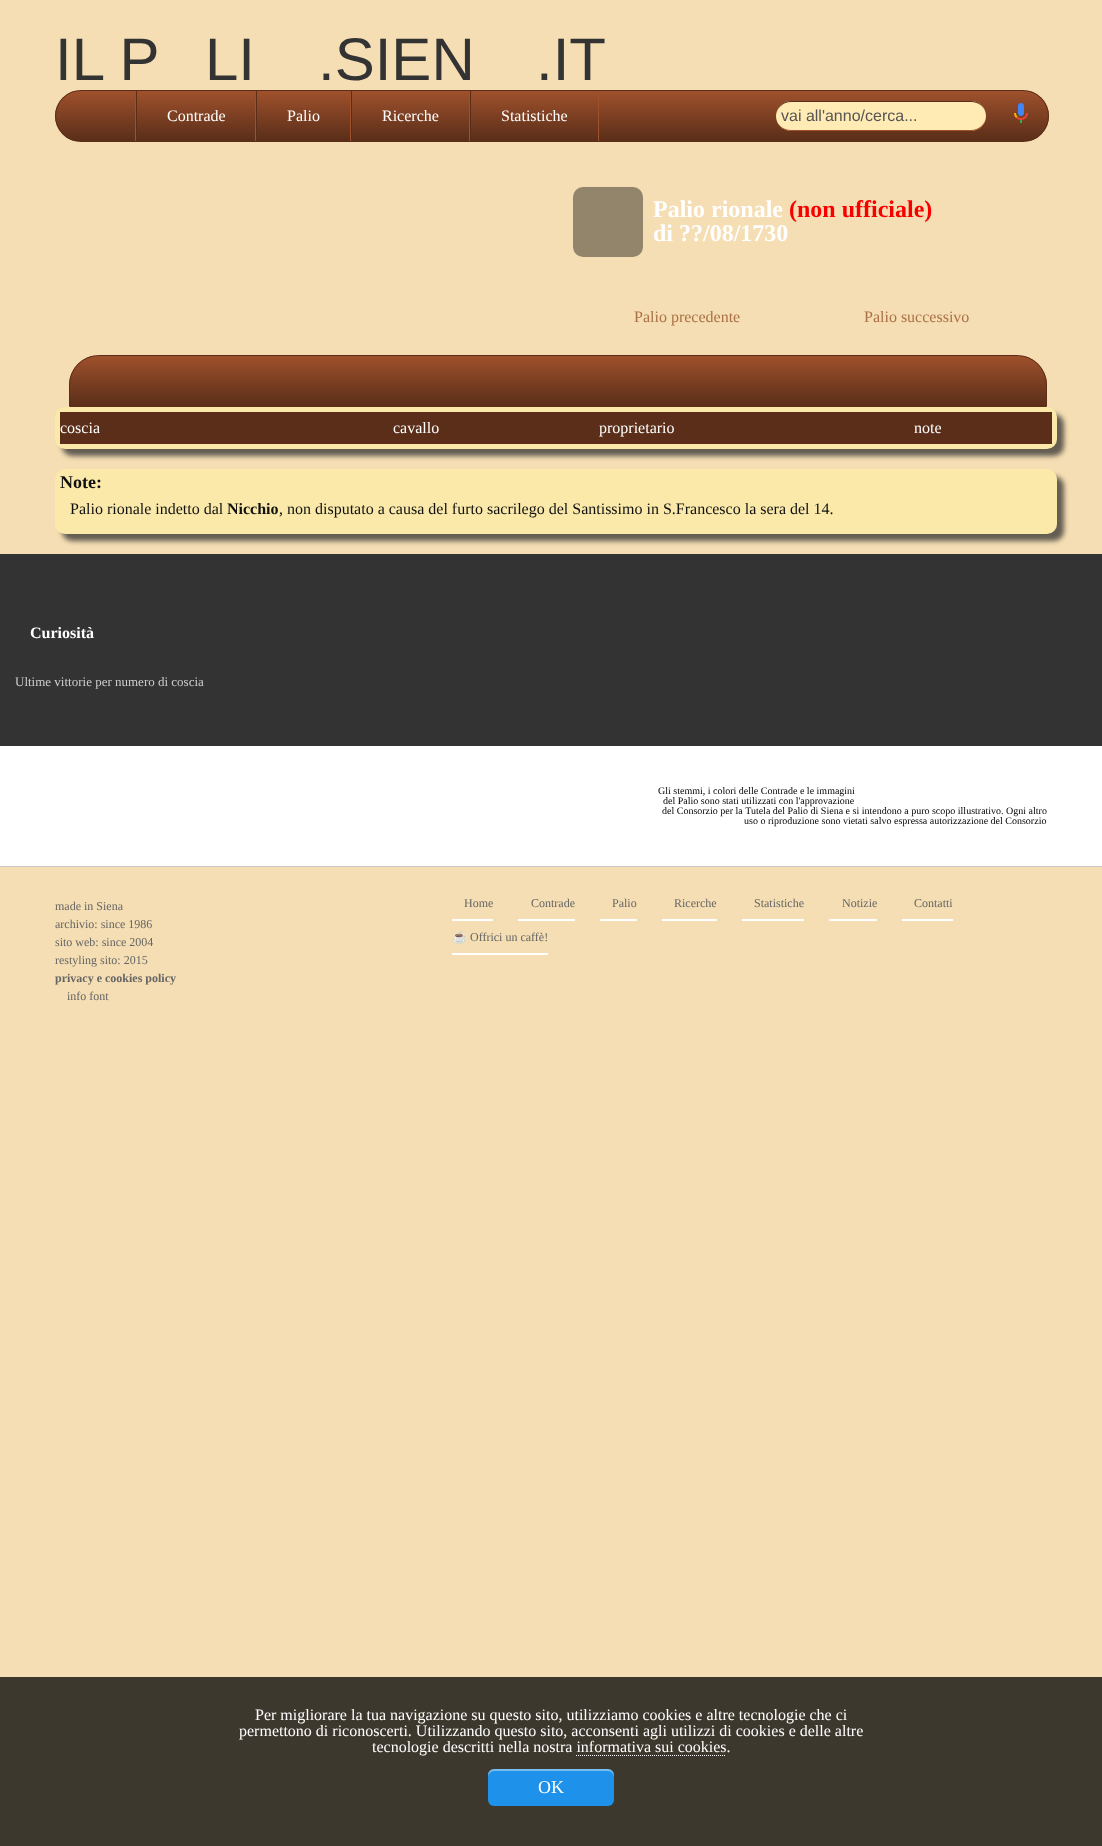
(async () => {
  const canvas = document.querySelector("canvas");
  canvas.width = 1102;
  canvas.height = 1846;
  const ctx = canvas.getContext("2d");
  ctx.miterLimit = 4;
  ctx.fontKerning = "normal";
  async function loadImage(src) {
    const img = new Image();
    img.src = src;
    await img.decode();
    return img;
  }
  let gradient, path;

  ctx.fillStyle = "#f5deb3";
  ctx.fillRect(0, 0, 1102, 1846);
  ctx.save();
  ctx.beginPath();
  ctx.roundRect(55, 90, 994, 52, 26);
  ctx.clip();
  gradient = ctx.createLinearGradient(552, 91, 552, 141);
  gradient.addColorStop(0, "#9f512c");
  gradient.addColorStop(1, "#5a2e19");
  ctx.fillStyle = gradient;
  ctx.fillRect(55, 91, 994, 50);
  ctx.restore();
  ctx.beginPath();
  ctx.roundRect(55.5, 90.5, 993, 51, 25.5);
  ctx.strokeStyle = "#5a2e19";
  ctx.stroke();
  for (const [x, y, w, h, color] of [
    [135, 91, 1, 50, "#9f512c"],
    [255, 91, 1, 50, "#9f512c"],
    [136, 91, 1, 50, "#5a2e19"],
    [350, 91, 1, 50, "#9f512c"],
    [256, 91, 1, 50, "#5a2e19"],
    [469, 91, 1, 50, "#9f512c"],
    [351, 91, 1, 50, "#5a2e19"],
    [598, 91, 1, 50, "#9f512c"],
    [470, 91, 1, 50, "#5a2e19"],
  ]) {
    ctx.fillStyle = color;
    ctx.fillRect(x, y, w, h);
  }
  ctx.fillStyle = "#ffebb3";
  ctx.beginPath();
  ctx.roundRect(776, 101, 210, 30, 15);
  ctx.fill();
  ctx.fillStyle = "#5a2e19";
  path = new Path2D("M791 101C783 101 777 107 776 115C777 108 783 102 791 102H971C979 102 985 107 986 115C985 107 979 101 971 101Z");
  ctx.fill(path);
  ctx.fillStyle = "#9f512c";
  path = new Path2D("M971 131C979 131 985 125 986 117C985 124 979 130 971 130H791C783 130 777 125 776 117C777 125 783 131 791 131Z");
  ctx.fill(path);
  ctx.drawImage(await loadImage("img/1.png"), 1014, 103, 14, 20);
  ctx.fillStyle = "#93856b";
  ctx.beginPath();
  ctx.roundRect(573, 187, 70, 70, 10);
  ctx.fill();
  ctx.fillStyle = "rgba(50, 50, 50, 0.75)";
  ctx.filter = "blur(2.5px)";
  ctx.beginPath();
  ctx.roundRect(62, 414, 1002, 42, 10);
  ctx.fill();
  ctx.filter = "none";
  ctx.save();
  ctx.beginPath();
  ctx.roundRect(69, 355, 978, 52, [30, 30, 0, 0]);
  ctx.clip();
  gradient = ctx.createLinearGradient(558, 356, 558, 406);
  gradient.addColorStop(0, "#9f512c");
  gradient.addColorStop(1, "#5a2e19");
  ctx.fillStyle = gradient;
  ctx.fillRect(69, 356, 978, 50);
  ctx.restore();
  ctx.beginPath();
  ctx.roundRect(69.5, 355.5, 977, 51, [29.5, 29.5, 0, 0]);
  ctx.stroke();
  ctx.fillStyle = "#fae9a9";
  ctx.beginPath();
  ctx.roundRect(55, 407, 1002, 42, 10);
  ctx.fill();
  ctx.fillStyle = "#5a2e19";
  ctx.fillRect(60, 412, 992, 32);
  ctx.fillStyle = "rgba(50, 50, 50, 0.75)";
  ctx.filter = "blur(2.5px)";
  ctx.beginPath();
  ctx.roundRect(62, 476, 1002, 65, 10);
  ctx.fill();
  ctx.filter = "none";
  ctx.fillStyle = "#fae9a9";
  ctx.beginPath();
  ctx.roundRect(55, 469, 1002, 65, 10);
  ctx.fill();
  for (const [x, y, w, h, color] of [
    [0, 554, 1102, 192, "#333333"],
    [0, 746, 1102, 120, "#ffffff"],
    [0, 866, 1102, 1, "#c8c8c8"],
    [452, 919, 41, 2, "#ffffff"],
    [518, 919, 57, 2, "#ffffff"],
    [600, 919, 37, 2, "#ffffff"],
    [662, 919, 55, 2, "#ffffff"],
    [742, 919, 62, 2, "#ffffff"],
    [829, 919, 48, 2, "#ffffff"],
    [902, 919, 51, 2, "#ffffff"],
    [452, 953, 96, 2, "#ffffff"],
    [0, 1677, 1102, 169, "#3d382d"],
  ]) {
    ctx.fillStyle = color;
    ctx.fillRect(x, y, w, h);
  }
  path = new Path2D("M576 1755.5H726");
  ctx.strokeStyle = "#ffffff";
  ctx.setLineDash([1, 1]);
  ctx.stroke(path);
  ctx.fillStyle = "#1e91ea";
  ctx.beginPath();
  ctx.roundRect(488, 1769, 126, 37, 6);
  ctx.fill();
  ctx.fillStyle = "rgba(255, 255, 255, 0.4)";
  path = new Path2D("M494 1771H608C611 1771 614 1774 614 1777V1775C614 1772 611 1769 608 1769H494C491 1769 488 1772 488 1775V1777C488 1774 491 1771 494 1771Z");
  ctx.fill(path);
  ctx.font = "60px Liberation Sans";
  ctx.fillStyle = "#333333";
  for (const [text, x, y] of [
    ["IL P", 55, 80],
    ["LI", 205, 80],
    [".SIEN", 318, 80],
    [".IT", 536, 80],
  ]) {
    ctx.fillText(text, x, y);
  }
  ctx.font = "16px Liberation Serif";
  ctx.fillStyle = "#ffffff";
  for (const [text, x, y] of [
    ["Contrade", 167, 121],
    ["Palio", 287, 121],
    ["Ricerche", 382, 121],
    ["Statistiche", 501, 121],
  ]) {
    ctx.fillText(text, x, y);
  }
  ctx.font = "16px Liberation Sans";
  ctx.fillStyle = "#555555";
  ctx.fillText("vai all'anno/cerca...", 781, 121);
  ctx.font = "bold 24px Liberation Serif";
  ctx.fillStyle = "#ffffff";
  ctx.fillText("Palio rionale", 653, 217);
  ctx.fillStyle = "#f90000";
  ctx.fillText("(non ufficiale)", 789, 217);
  ctx.fillStyle = "#ffffff";
  ctx.fillText("di ??/08/1730", 653, 241);
  ctx.font = "16px Liberation Serif";
  ctx.fillStyle = "#ab7146";
  ctx.fillText("Palio precedente", 634, 322);
  ctx.fillText("Palio successivo", 864, 322);
  ctx.fillStyle = "#ffffff";
  for (const [text, x, y] of [
    ["coscia", 60, 433],
    ["cavallo", 393, 433],
    ["proprietario", 599, 433],
    ["note", 914, 433],
  ]) {
    ctx.fillText(text, x, y);
  }
  ctx.font = "bold 18px Liberation Serif";
  ctx.fillStyle = "#111111";
  ctx.fillText("Note:", 60, 488);
  ctx.font = "16px Liberation Serif";
  ctx.fillText("Palio rionale indetto dal", 70, 514);
  ctx.font = "bold 16px Liberation Serif";
  ctx.fillText("Nicchio", 227, 514);
  ctx.font = "16px Liberation Serif";
  ctx.fillText(", non disputato a causa del furto sacrilego del Santissimo in S.Francesco la sera del 14.", 279, 514);
  ctx.font = "bold 16px Liberation Serif";
  ctx.fillStyle = "#ffffff";
  ctx.fillText("Curiosità", 30, 638);
  ctx.font = "13px Liberation Serif";
  ctx.fillStyle = "#cccccc";
  ctx.fillText("Ultime vittorie per numero di coscia", 15, 686);
  ctx.font = "10px Liberation Serif";
  ctx.fillStyle = "#000000";
  for (const [text, x, y] of [
    ["Gli stemmi, i colori delle Contrade e le immagini", 658, 794],
    ["del Palio sono stati utilizzati con l'approvazione", 663, 804],
    ["del Consorzio per la Tutela del Palio di Siena e si intendono a puro scopo illustrativo. Ogni altro", 662, 814],
    ["uso o riproduzione sono vietati salvo espressa autorizzazione del Consorzio", 744, 824],
  ]) {
    ctx.fillText(text, x, y);
  }
  ctx.font = "12px Liberation Serif";
  ctx.fillStyle = "#666666";
  for (const [text, x, y] of [
    ["made in Siena", 55, 910],
    ["archivio: since 1986", 55, 928],
    ["sito web: since 2004", 55, 946],
    ["restyling sito: 2015", 55, 964],
  ]) {
    ctx.fillText(text, x, y);
  }
  ctx.font = "bold 12px Liberation Serif";
  ctx.fillText("privacy e cookies policy", 55, 982);
  ctx.font = "12px Liberation Serif";
  for (const [text, x, y] of [
    ["info font", 67, 1000],
    ["Home", 464, 907],
    ["Contrade", 531, 907],
    ["Palio", 612, 907],
    ["Ricerche", 674, 907],
    ["Statistiche", 754, 907],
    ["Notizie", 842, 907],
    ["Contatti", 914, 907],
  ]) {
    ctx.fillText(text, x, y);
  }
  ctx.font = "12px Noto Color Emoji";
  ctx.fillText("☕", 452, 941);
  ctx.font = "12px Liberation Serif";
  ctx.fillText("Offrici un caffè!", 470, 941);
  ctx.font = "16px Liberation Serif";
  ctx.fillStyle = "#ffffff";
  for (const [text, x, y] of [
    ["Per migliorare la tua navigazione su questo sito, utilizziamo cookies e altre tecnologie che ci", 255, 1720],
    ["permettono di riconoscerti. Utilizzando questo sito, acconsenti agli utilizzi di cookies e delle altre", 239, 1736],
    ["tecnologie descritti nella nostra informativa sui cookies.", 372, 1752],
  ]) {
    ctx.fillText(text, x, y);
  }
  ctx.font = "18px Liberation Serif";
  ctx.fillText("OK", 538, 1793);
})();
